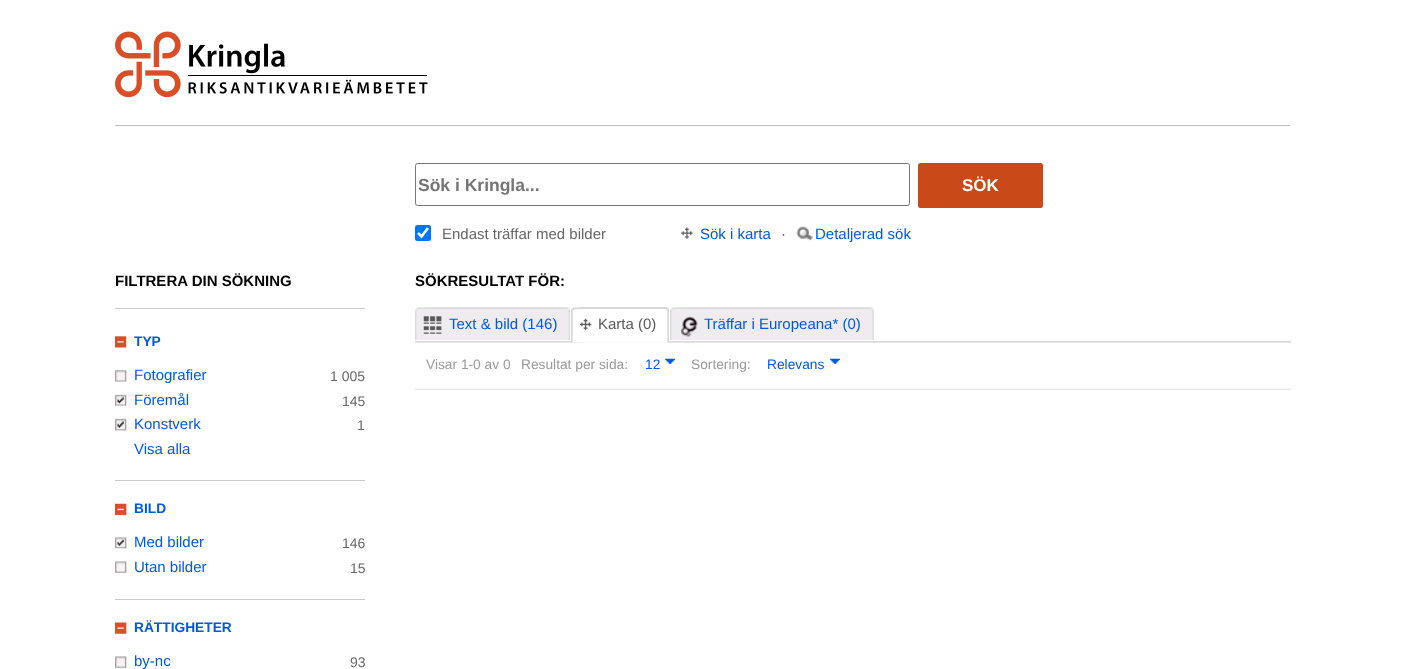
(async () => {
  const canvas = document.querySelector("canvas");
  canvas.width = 1404;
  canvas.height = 669;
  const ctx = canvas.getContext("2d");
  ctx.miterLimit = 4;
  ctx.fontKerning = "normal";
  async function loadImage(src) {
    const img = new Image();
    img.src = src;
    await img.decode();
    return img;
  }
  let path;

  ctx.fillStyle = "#ffffff";
  ctx.fillRect(0, 0, 1404, 669);
  ctx.fillStyle = "#bababa";
  ctx.fillRect(115, 125, 1175, 1);
  ctx.drawImage(await loadImage("img/1.png"), 115, 31, 313, 67);
  ctx.beginPath();
  ctx.roundRect(415.5, 163.5, 494, 42, 2);
  ctx.strokeStyle = "#767676";
  ctx.stroke();
  ctx.fillStyle = "#c94a18";
  ctx.beginPath();
  ctx.roundRect(918, 163, 125, 45, 2.5);
  ctx.fill();
  ctx.fillStyle = "#0075ff";
  ctx.beginPath();
  ctx.roundRect(415, 225, 16, 16, 2.5);
  ctx.fill();
  path = new Path2D("M418 233L421.5 236.5L428 228");
  ctx.strokeStyle = "#ffffff";
  ctx.lineWidth = 2.6;
  ctx.stroke(path);
  ctx.drawImage(await loadImage("img/2.png"), 681, 227, 12, 12);
  ctx.drawImage(await loadImage("img/3.png"), 796, 226, 17, 15);
  ctx.fillStyle = "#cbcaca";
  ctx.fillRect(115, 308, 250, 1);
  ctx.fillRect(115, 480, 250, 1);
  ctx.drawImage(await loadImage("img/4.png"), 115, 336, 12, 12);
  ctx.drawImage(await loadImage("img/5.png"), 115, 370, 12, 12);
  ctx.drawImage(await loadImage("img/6.png"), 115, 394, 12, 12);
  ctx.drawImage(await loadImage("img/7.png"), 115, 418, 12, 13);
  ctx.fillRect(115, 599, 250, 1);
  ctx.drawImage(await loadImage("img/8.png"), 115, 503, 12, 13);
  ctx.drawImage(await loadImage("img/9.png"), 115, 537, 12, 12);
  ctx.drawImage(await loadImage("img/10.png"), 115, 561, 12, 12);
  ctx.drawImage(await loadImage("img/11.png"), 115, 622, 12, 12);
  ctx.drawImage(await loadImage("img/10.png"), 115, 656, 12, 12);
  ctx.drawImage(await loadImage("img/12.png"), 415, 341, 877, 2);
  ctx.drawImage(await loadImage("img/13.png"), 415, 307, 155, 34);
  ctx.drawImage(await loadImage("img/14.png"), 424, 307, 146, 33);
  ctx.drawImage(await loadImage("img/15.png"), 423, 316, 19, 18);
  ctx.drawImage(await loadImage("img/16.png"), 571, 307, 98, 36);
  ctx.drawImage(await loadImage("img/17.png"), 580, 307, 89, 36);
  ctx.drawImage(await loadImage("img/18.png"), 580, 318, 12, 13);
  ctx.drawImage(await loadImage("img/19.png"), 670, 307, 204, 34);
  ctx.drawImage(await loadImage("img/20.png"), 679, 307, 195, 33);
  ctx.drawImage(await loadImage("img/21.png"), 681, 316, 17, 22);
  ctx.drawImage(await loadImage("img/22.png"), 415, 388, 877, 2);
  ctx.drawImage(await loadImage("img/23.png"), 665, 358, 10, 6);
  ctx.drawImage(await loadImage("img/24.png"), 829, 358, 11, 6);
  ctx.font = "bold 17.5px Liberation Sans";
  ctx.fillStyle = "#757575";
  ctx.fillText("Sök i Kringla...", 418, 191);
  ctx.font = "bold 17px Liberation Sans";
  ctx.fillStyle = "#ffffff";
  ctx.fillText("SÖK", 962, 191);
  ctx.font = "15px Liberation Sans";
  ctx.fillStyle = "#666666";
  ctx.fillText("Endast träffar med bilder", 442, 239);
  ctx.fillStyle = "#0059df";
  ctx.fillText("Sök i karta", 700, 239);
  ctx.fillStyle = "#585858";
  ctx.fillText("·", 781, 239);
  ctx.fillStyle = "#0059df";
  ctx.fillText("Detaljerad sök", 815, 239);
  ctx.font = "bold 15px Liberation Sans";
  ctx.fillStyle = "#000000";
  ctx.fillText("FILTRERA DIN SÖKNING", 115, 286);
  ctx.font = "bold 13.75px Liberation Sans";
  ctx.fillStyle = "#0059df";
  ctx.fillText("TYP", 134, 346);
  ctx.font = "15px Liberation Sans";
  ctx.fillText("Fotografier", 134, 380);
  ctx.font = "14px Liberation Sans";
  ctx.fillStyle = "#666666";
  ctx.fillText("1 005", 330, 381);
  ctx.font = "15px Liberation Sans";
  ctx.fillStyle = "#0059df";
  ctx.fillText("Föremål", 134, 405);
  ctx.font = "14px Liberation Sans";
  ctx.fillStyle = "#666666";
  ctx.fillText("145", 342, 406);
  ctx.font = "15px Liberation Sans";
  ctx.fillStyle = "#0059df";
  ctx.fillText("Konstverk", 134, 429);
  ctx.font = "14px Liberation Sans";
  ctx.fillStyle = "#666666";
  ctx.fillText("1", 357, 430);
  ctx.font = "15px Liberation Sans";
  ctx.fillStyle = "#0059df";
  ctx.fillText("Visa alla", 134, 454);
  ctx.font = "bold 13.75px Liberation Sans";
  ctx.fillText("BILD", 134, 513);
  ctx.font = "15px Liberation Sans";
  ctx.fillText("Med bilder", 134, 547);
  ctx.font = "14px Liberation Sans";
  ctx.fillStyle = "#666666";
  ctx.fillText("146", 342, 548);
  ctx.font = "15px Liberation Sans";
  ctx.fillStyle = "#0059df";
  ctx.fillText("Utan bilder", 134, 572);
  ctx.font = "14px Liberation Sans";
  ctx.fillStyle = "#666666";
  ctx.fillText("15", 350, 573);
  ctx.font = "bold 13.75px Liberation Sans";
  ctx.fillStyle = "#0059df";
  ctx.fillText("RÄTTIGHETER", 134, 632);
  ctx.font = "15px Liberation Sans";
  ctx.fillText("by-nc", 134, 666);
  ctx.font = "14px Liberation Sans";
  ctx.fillStyle = "#666666";
  ctx.fillText("93", 350, 667);
  ctx.font = "bold 15px Liberation Sans";
  ctx.fillStyle = "#000000";
  ctx.fillText("SÖKRESULTAT FÖR:", 415, 286);
  ctx.font = "15px Liberation Sans";
  ctx.fillStyle = "#0059df";
  ctx.fillText("Text & bild (146)", 449, 329);
  ctx.fillStyle = "#585858";
  ctx.fillText("Karta (0)", 598, 329);
  ctx.fillStyle = "#0059df";
  ctx.fillText("Träffar i Europeana* (0)", 704, 329);
  ctx.font = "13.75px Liberation Sans";
  ctx.fillStyle = "#999999";
  ctx.fillText("Visar 1-0 av 0", 426, 369);
  ctx.fillText("Resultat per sida:", 521, 369);
  ctx.fillStyle = "#0059df";
  ctx.fillText("12", 645, 369);
  ctx.fillStyle = "#999999";
  ctx.fillText("Sortering:", 691, 369);
  ctx.fillStyle = "#0059df";
  ctx.fillText("Relevans", 767, 369);
})();
